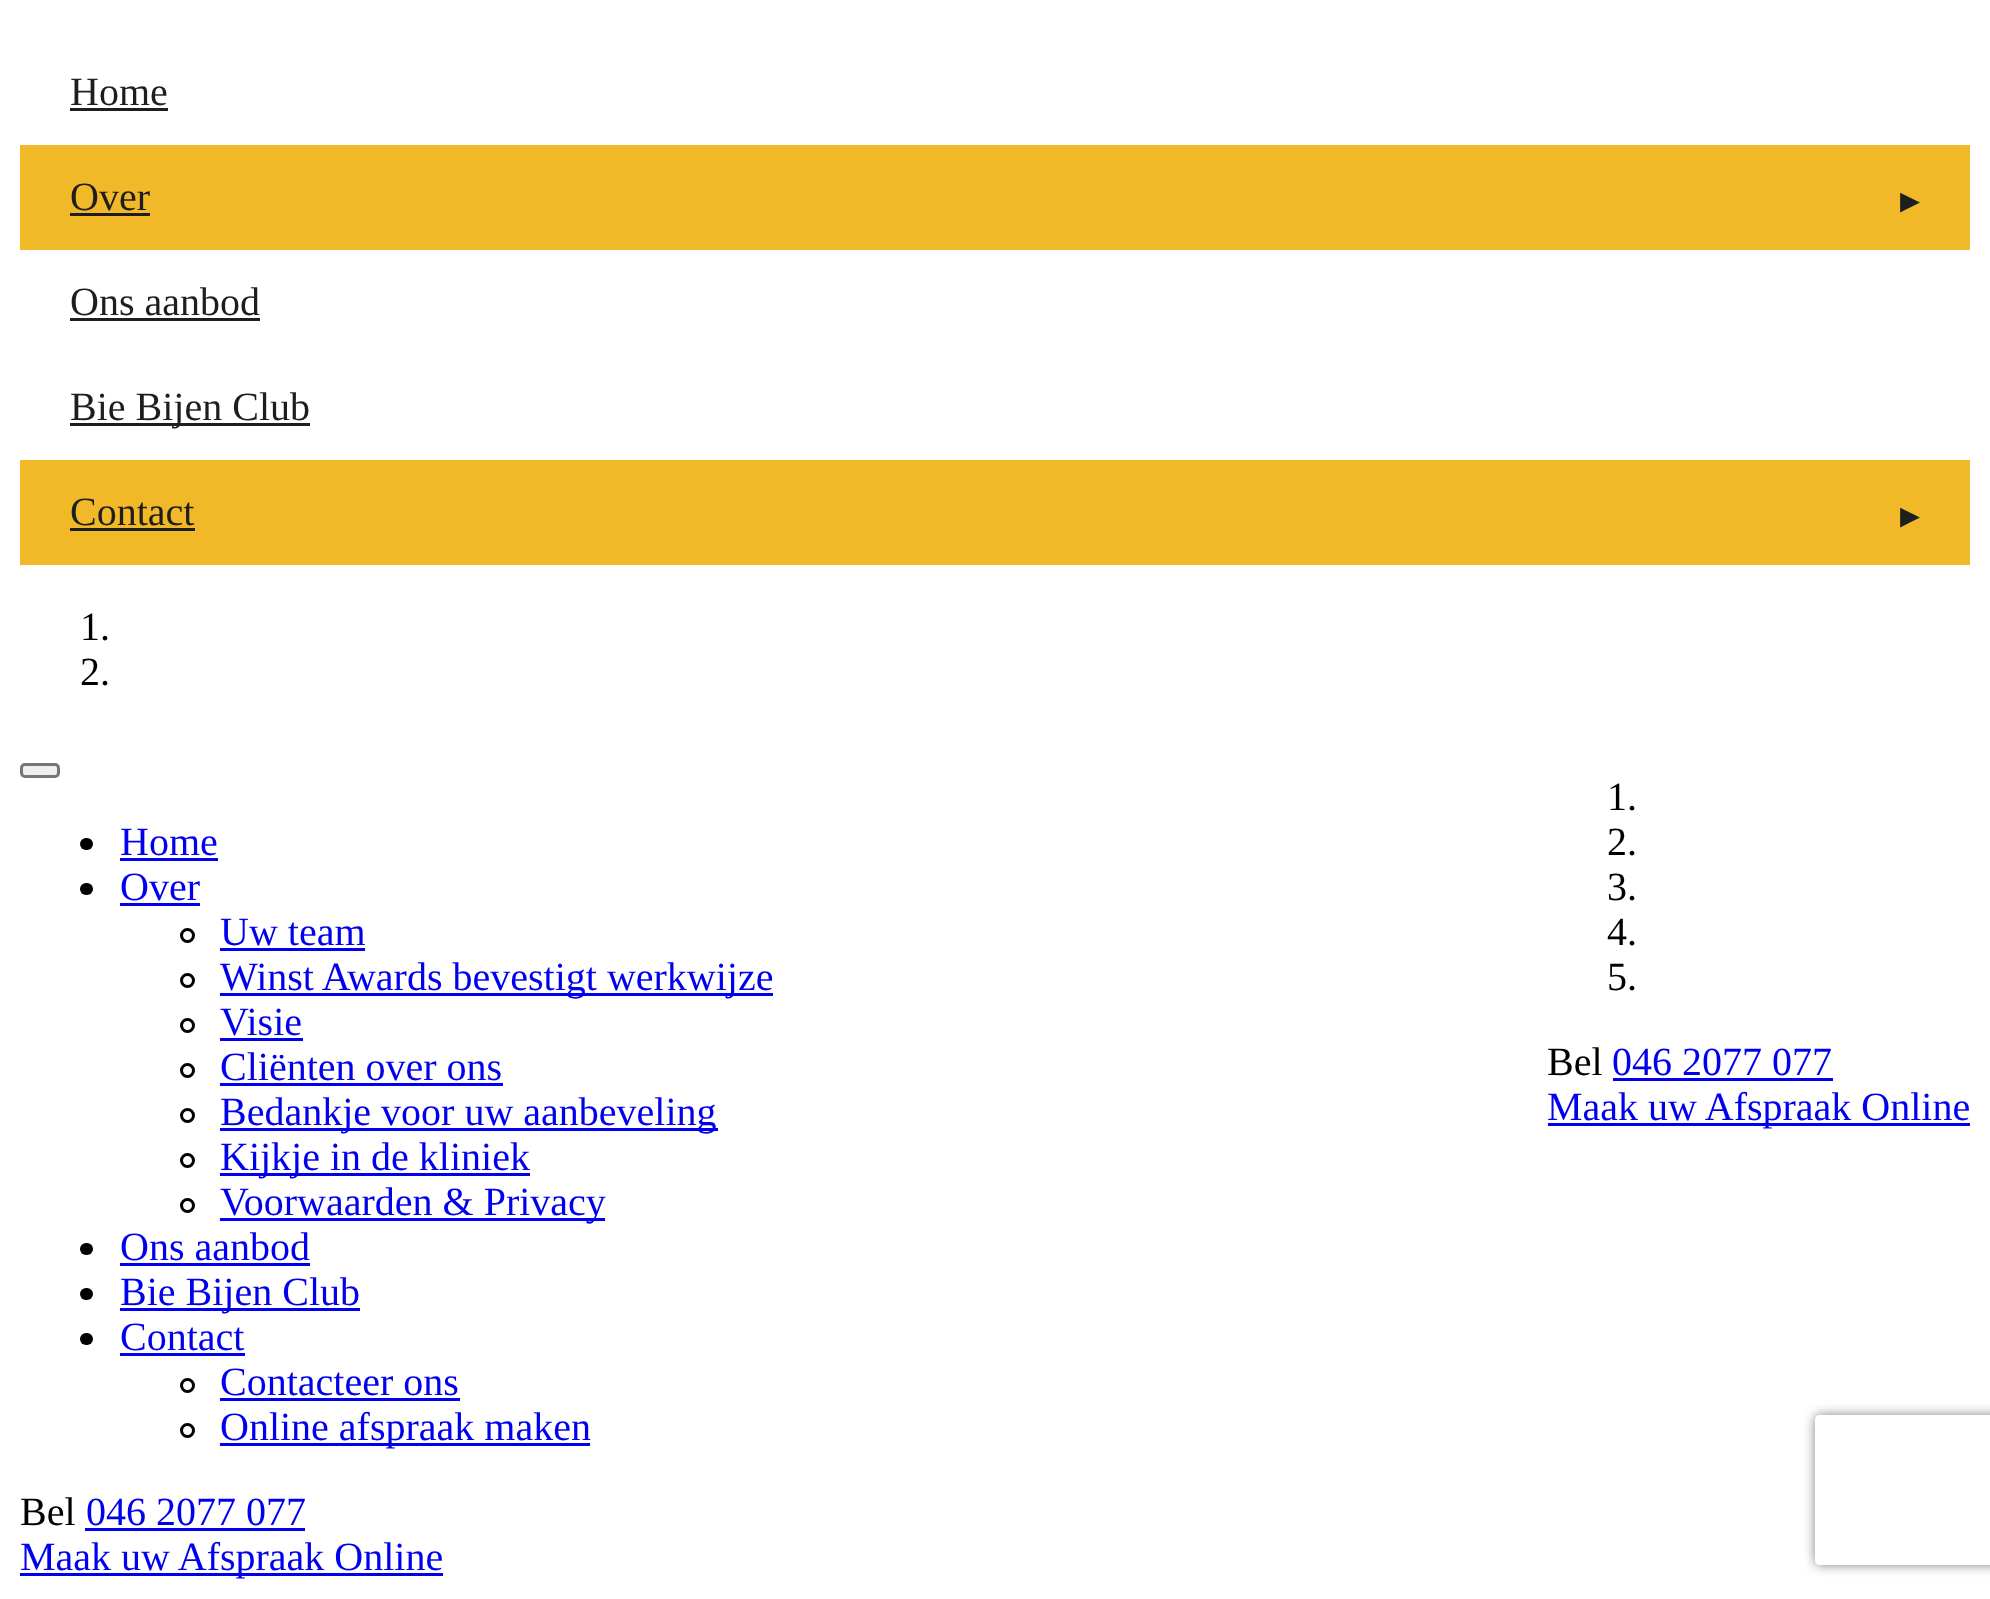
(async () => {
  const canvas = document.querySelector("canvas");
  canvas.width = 1990;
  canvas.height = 1599;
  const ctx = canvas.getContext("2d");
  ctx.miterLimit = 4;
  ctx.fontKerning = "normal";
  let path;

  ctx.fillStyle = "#ffffff";
  ctx.fillRect(0, 0, 1990, 1599);
  for (const [x, y, w, h, color] of [
    [70, 108, 98, 3, "#1e1e1e"],
    [20, 145, 1950, 105, "#f1b828"],
    [70, 213, 80, 3, "#1e1e1e"],
    [70, 318, 190, 3, "#1e1e1e"],
    [70, 423, 240, 3, "#1e1e1e"],
    [20, 460, 1950, 105, "#f1b828"],
    [70, 528, 125, 3, "#1e1e1e"],
  ]) {
    ctx.fillStyle = color;
    ctx.fillRect(x, y, w, h);
  }
  ctx.fillStyle = "#efefef";
  ctx.beginPath();
  ctx.roundRect(21.5, 764.5, 37, 12, 3.5);
  ctx.fill();
  ctx.strokeStyle = "#767676";
  ctx.lineWidth = 3;
  ctx.stroke();
  ctx.fillStyle = "#000000";
  ctx.beginPath();
  ctx.roundRect(80, 838, 13, 12, 6);
  ctx.fill();
  ctx.fillStyle = "#0000ee";
  ctx.fillRect(120, 858, 98, 3);
  ctx.fillStyle = "#000000";
  ctx.beginPath();
  ctx.roundRect(80, 883, 13, 12, 6);
  ctx.fill();
  ctx.fillStyle = "#0000ee";
  ctx.fillRect(120, 903, 80, 3);
  ctx.beginPath();
  ctx.arc(187.5, 935.5, 6, 0, Math.PI * 2);
  ctx.strokeStyle = "#000000";
  ctx.stroke();
  ctx.fillRect(220, 948, 145, 3);
  ctx.beginPath();
  ctx.arc(187.5, 980.5, 6, 0, Math.PI * 2);
  ctx.stroke();
  ctx.fillRect(220, 993, 553, 3);
  ctx.beginPath();
  ctx.arc(187.5, 1025.5, 6, 0, Math.PI * 2);
  ctx.stroke();
  ctx.fillRect(220, 1038, 83, 3);
  ctx.beginPath();
  ctx.arc(187.5, 1070.5, 6, 0, Math.PI * 2);
  ctx.stroke();
  ctx.fillRect(220, 1083, 283, 3);
  ctx.beginPath();
  ctx.arc(187.5, 1115.5, 6, 0, Math.PI * 2);
  ctx.stroke();
  ctx.fillRect(220, 1128, 498, 3);
  ctx.beginPath();
  ctx.arc(187.5, 1160.5, 6, 0, Math.PI * 2);
  ctx.stroke();
  ctx.fillRect(220, 1173, 310, 3);
  ctx.beginPath();
  ctx.arc(187.5, 1205.5, 6, 0, Math.PI * 2);
  ctx.stroke();
  ctx.fillRect(220, 1218, 385, 3);
  ctx.fillStyle = "#000000";
  ctx.beginPath();
  ctx.roundRect(80, 1243, 13, 12, 6);
  ctx.fill();
  ctx.fillStyle = "#0000ee";
  ctx.fillRect(120, 1263, 190, 3);
  ctx.fillStyle = "#000000";
  ctx.beginPath();
  ctx.roundRect(80, 1288, 13, 12, 6);
  ctx.fill();
  ctx.fillStyle = "#0000ee";
  ctx.fillRect(120, 1308, 240, 3);
  ctx.fillStyle = "#000000";
  ctx.beginPath();
  ctx.roundRect(80, 1333, 13, 12, 6);
  ctx.fill();
  ctx.fillStyle = "#0000ee";
  ctx.fillRect(120, 1353, 125, 3);
  ctx.beginPath();
  ctx.arc(187.5, 1385.5, 6, 0, Math.PI * 2);
  ctx.stroke();
  ctx.fillRect(220, 1398, 240, 3);
  ctx.beginPath();
  ctx.arc(187.5, 1430.5, 6, 0, Math.PI * 2);
  ctx.stroke();
  for (const [x, y, w, h, color] of [
    [220, 1443, 370, 3, "#0000ee"],
    [1613, 1078, 220, 3, "#0000ee"],
    [1548, 1123, 422, 3, "#0000ee"],
    [85, 1528, 220, 3, "#0000ee"],
    [20, 1573, 423, 3, "#0000ee"],
  ]) {
    ctx.fillStyle = color;
    ctx.fillRect(x, y, w, h);
  }
  ctx.save();
  path = new Path2D("M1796 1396H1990V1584H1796ZM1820 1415H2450C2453 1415 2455 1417 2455 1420V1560C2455 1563 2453 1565 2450 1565H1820C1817 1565 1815 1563 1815 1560V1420C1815 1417 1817 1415 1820 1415Z");
  ctx.clip(path, "evenodd");
  ctx.fillStyle = "#808080";
  ctx.filter = "blur(6px)";
  ctx.beginPath();
  ctx.roundRect(1815, 1415, 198, 150, 5);
  ctx.fill();
  ctx.filter = "none";
  ctx.restore();
  ctx.font = "40px Liberation Serif";
  ctx.fillStyle = "#1e1e1e";
  ctx.fillText("Home", 70, 105);
  ctx.fillText("Over", 70, 210);
  ctx.font = "40px DejaVu Sans";
  ctx.fillText("▸", 1900, 213);
  ctx.font = "40px Liberation Serif";
  for (const [text, x, y] of [
    ["Ons aanbod", 70, 315],
    ["Bie Bijen Club", 70, 420],
    ["Contact", 70, 525],
  ]) {
    ctx.fillText(text, x, y);
  }
  ctx.font = "40px DejaVu Sans";
  ctx.fillText("▸", 1900, 528);
  ctx.font = "40px Liberation Serif";
  ctx.fillStyle = "#000000";
  ctx.fillText("1.", 80, 640);
  ctx.fillText("2.", 80, 685);
  ctx.fillStyle = "#0000ee";
  for (const [text, x, y] of [
    ["Home", 120, 855],
    ["Over", 120, 900],
    ["Uw team", 220, 945],
    ["Winst Awards bevestigt werkwijze", 220, 990],
    ["Visie", 220, 1035],
    ["Cliënten over ons", 220, 1080],
    ["Bedankje voor uw aanbeveling", 220, 1125],
    ["Kijkje in de kliniek", 220, 1170],
    ["Voorwaarden & Privacy", 220, 1215],
    ["Ons aanbod", 120, 1260],
    ["Bie Bijen Club", 120, 1305],
    ["Contact", 120, 1350],
    ["Contacteer ons", 220, 1395],
    ["Online afspraak maken", 220, 1440],
  ]) {
    ctx.fillText(text, x, y);
  }
  ctx.fillStyle = "#000000";
  for (const [text, x, y] of [
    ["1.", 1607, 810],
    ["2.", 1607, 855],
    ["3.", 1607, 900],
    ["4.", 1607, 945],
    ["5.", 1607, 990],
    ["Bel", 1547, 1075],
  ]) {
    ctx.fillText(text, x, y);
  }
  ctx.fillStyle = "#0000ee";
  ctx.fillText("046 2077 077", 1612, 1075);
  ctx.fillText("Maak uw Afspraak Online", 1547, 1120);
  ctx.fillStyle = "#000000";
  ctx.fillText("Bel", 20, 1525);
  ctx.fillStyle = "#0000ee";
  ctx.fillText("046 2077 077", 86, 1525);
  ctx.fillText("Maak uw Afspraak Online", 20, 1570);
})();
